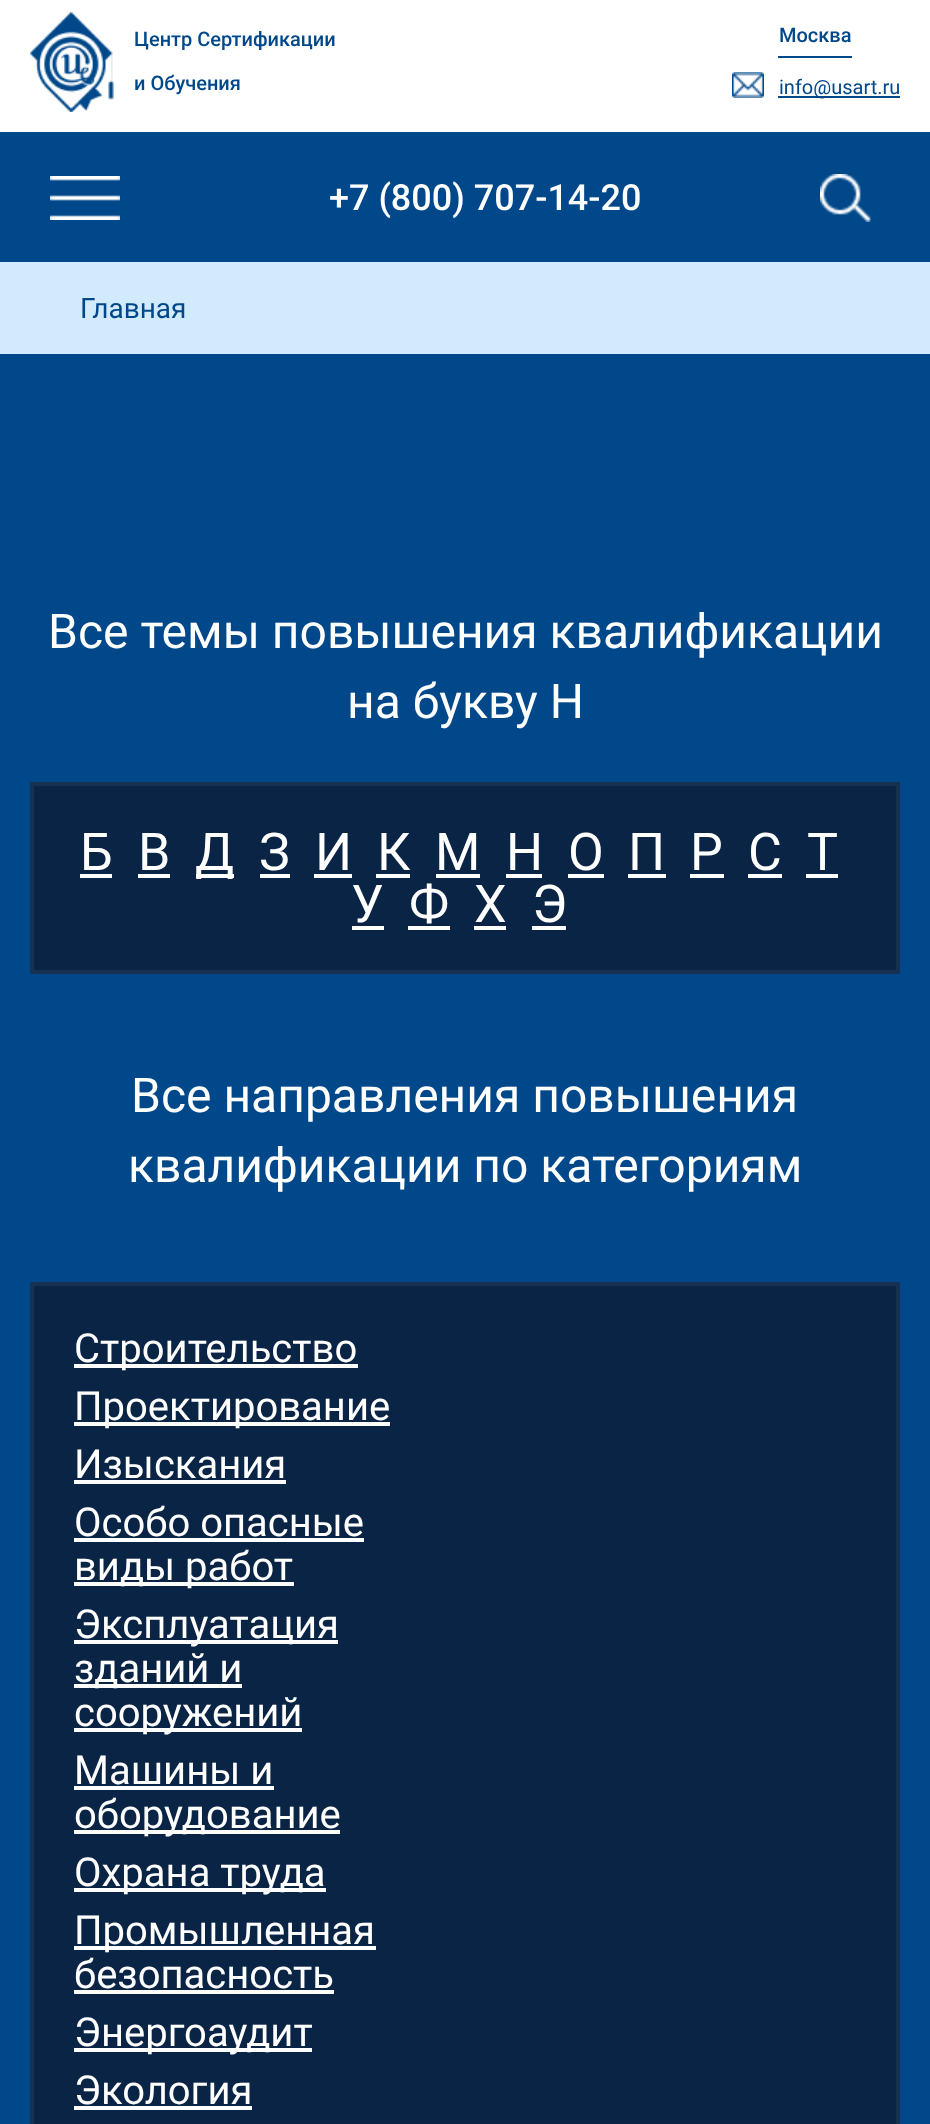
(async () => {
  const canvas = document.querySelector("canvas");
  canvas.width = 930;
  canvas.height = 2124;
  const ctx = canvas.getContext("2d");
  ctx.miterLimit = 4;
  ctx.fontKerning = "normal";
  async function loadImage(src) {
    const img = new Image();
    img.src = src;
    await img.decode();
    return img;
  }

  ctx.fillStyle = "#ffffff";
  ctx.fillRect(0, 0, 930, 2124);
  ctx.drawImage(await loadImage("img/1.png"), 30, 12, 84, 100);
  ctx.fillStyle = "#00488a";
  ctx.fillRect(778, 56, 74, 2);
  ctx.drawImage(await loadImage("img/2.png"), 732, 72, 32, 26);
  ctx.fillRect(778, 96, 122, 2);
  ctx.fillRect(0, 132, 930, 130);
  ctx.drawImage(await loadImage("img/3.png"), 820, 174, 51, 48);
  ctx.drawImage(await loadImage("img/4.png"), 50, 176, 70, 44);
  ctx.fillStyle = "#d2ebfc";
  ctx.fillRect(0, 262, 930, 92);
  ctx.fillStyle = "#00488a";
  ctx.fillRect(0, 354, 930, 1770);
  ctx.fillStyle = "#0a2445";
  ctx.beginPath();
  ctx.rect(32, 784, 866, 188);
  ctx.fill();
  ctx.strokeStyle = "#173152";
  ctx.lineWidth = 4;
  ctx.stroke();
  for (const [x, y, w, h, color] of [
    [80, 874, 32, 4, "#ffffff"],
    [138, 874, 32, 4, "#ffffff"],
    [196, 874, 38, 4, "#ffffff"],
    [260, 874, 30, 4, "#ffffff"],
    [314, 874, 38, 4, "#ffffff"],
    [376, 874, 34, 4, "#ffffff"],
    [436, 874, 44, 4, "#ffffff"],
    [506, 874, 36, 4, "#ffffff"],
    [568, 874, 36, 4, "#ffffff"],
    [628, 874, 38, 4, "#ffffff"],
    [690, 874, 34, 4, "#ffffff"],
    [748, 874, 34, 4, "#ffffff"],
    [806, 874, 32, 4, "#ffffff"],
    [352, 926, 32, 4, "#ffffff"],
    [408, 926, 42, 4, "#ffffff"],
    [474, 926, 32, 4, "#ffffff"],
    [532, 926, 34, 4, "#ffffff"],
  ]) {
    ctx.fillStyle = color;
    ctx.fillRect(x, y, w, h);
  }
  ctx.fillStyle = "#0a2445";
  ctx.beginPath();
  ctx.rect(32, 1284, 866, 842);
  ctx.fill();
  ctx.stroke();
  for (const [x, y, w, h, color] of [
    [74, 1364, 284, 4, "#ffffff"],
    [74, 1422, 316, 4, "#ffffff"],
    [74, 1480, 212, 4, "#ffffff"],
    [74, 1538, 290, 4, "#ffffff"],
    [74, 1582, 220, 4, "#ffffff"],
    [74, 1640, 264, 4, "#ffffff"],
    [74, 1684, 168, 4, "#ffffff"],
    [74, 1728, 228, 4, "#ffffff"],
    [74, 1786, 200, 4, "#ffffff"],
    [74, 1830, 266, 4, "#ffffff"],
    [74, 1888, 252, 4, "#ffffff"],
    [74, 1946, 302, 4, "#ffffff"],
    [74, 1990, 260, 4, "#ffffff"],
    [74, 2048, 238, 4, "#ffffff"],
    [74, 2106, 178, 4, "#ffffff"],
  ]) {
    ctx.fillStyle = color;
    ctx.fillRect(x, y, w, h);
  }
  ctx.font = "500 20px Roboto";
  ctx.fillStyle = "#00488a";
  for (const [text, x, y] of [
    ["Центр Сертификации", 134, 46],
    ["и Обучения", 134, 90],
    ["Москва", 779, 42],
  ]) {
    ctx.fillText(text, x, y);
  }
  ctx.font = "20px Roboto";
  ctx.fillText("info@usart.ru", 779, 94);
  ctx.font = "500 36px Roboto";
  ctx.fillStyle = "#ffffff";
  ctx.fillText("+7 (800) 707-14-20", 329, 210);
  ctx.font = "28px Roboto";
  ctx.fillStyle = "#00488a";
  ctx.fillText("Главная", 80, 318);
  ctx.font = "48px Roboto";
  ctx.fillStyle = "#ffffff";
  ctx.fillText("Все темы повышения квалификации", 48, 648);
  ctx.fillText("на букву Н", 347, 718);
  ctx.font = "52px Roboto";
  for (const [text, x, y] of [
    ["Б", 80, 870],
    ["В", 138, 870],
    ["Д", 195, 870],
    ["З", 259, 870],
    ["И", 315, 870],
    ["К", 377, 870],
    ["М", 435, 870],
    ["Н", 506, 870],
    ["О", 568, 870],
    ["П", 628, 870],
    ["Р", 690, 870],
    ["С", 748, 870],
    ["Т", 807, 870],
    ["У", 351, 922],
    ["Ф", 409, 922],
    ["Х", 474, 922],
    ["Э", 532, 922],
  ]) {
    ctx.fillText(text, x, y);
  }
  ctx.font = "48px Roboto";
  ctx.fillText("Все направления повышения", 131, 1112);
  ctx.fillText("квалификации по категориям", 128, 1182);
  ctx.font = "40px Roboto";
  for (const [text, x, y] of [
    ["Строительство", 74, 1362],
    ["Проектирование", 74, 1420],
    ["Изыскания", 74, 1478],
    ["Особо опасные", 74, 1536],
    ["виды работ", 74, 1580],
    ["Эксплуатация", 74, 1638],
    ["зданий и", 74, 1682],
    ["сооружений", 74, 1726],
    ["Машины и", 74, 1784],
    ["оборудование", 74, 1828],
    ["Охрана труда", 74, 1886],
    ["Промышленная", 74, 1944],
    ["безопасность", 74, 1988],
    ["Энергоаудит", 74, 2046],
    ["Экология", 74, 2104],
  ]) {
    ctx.fillText(text, x, y);
  }
})();
